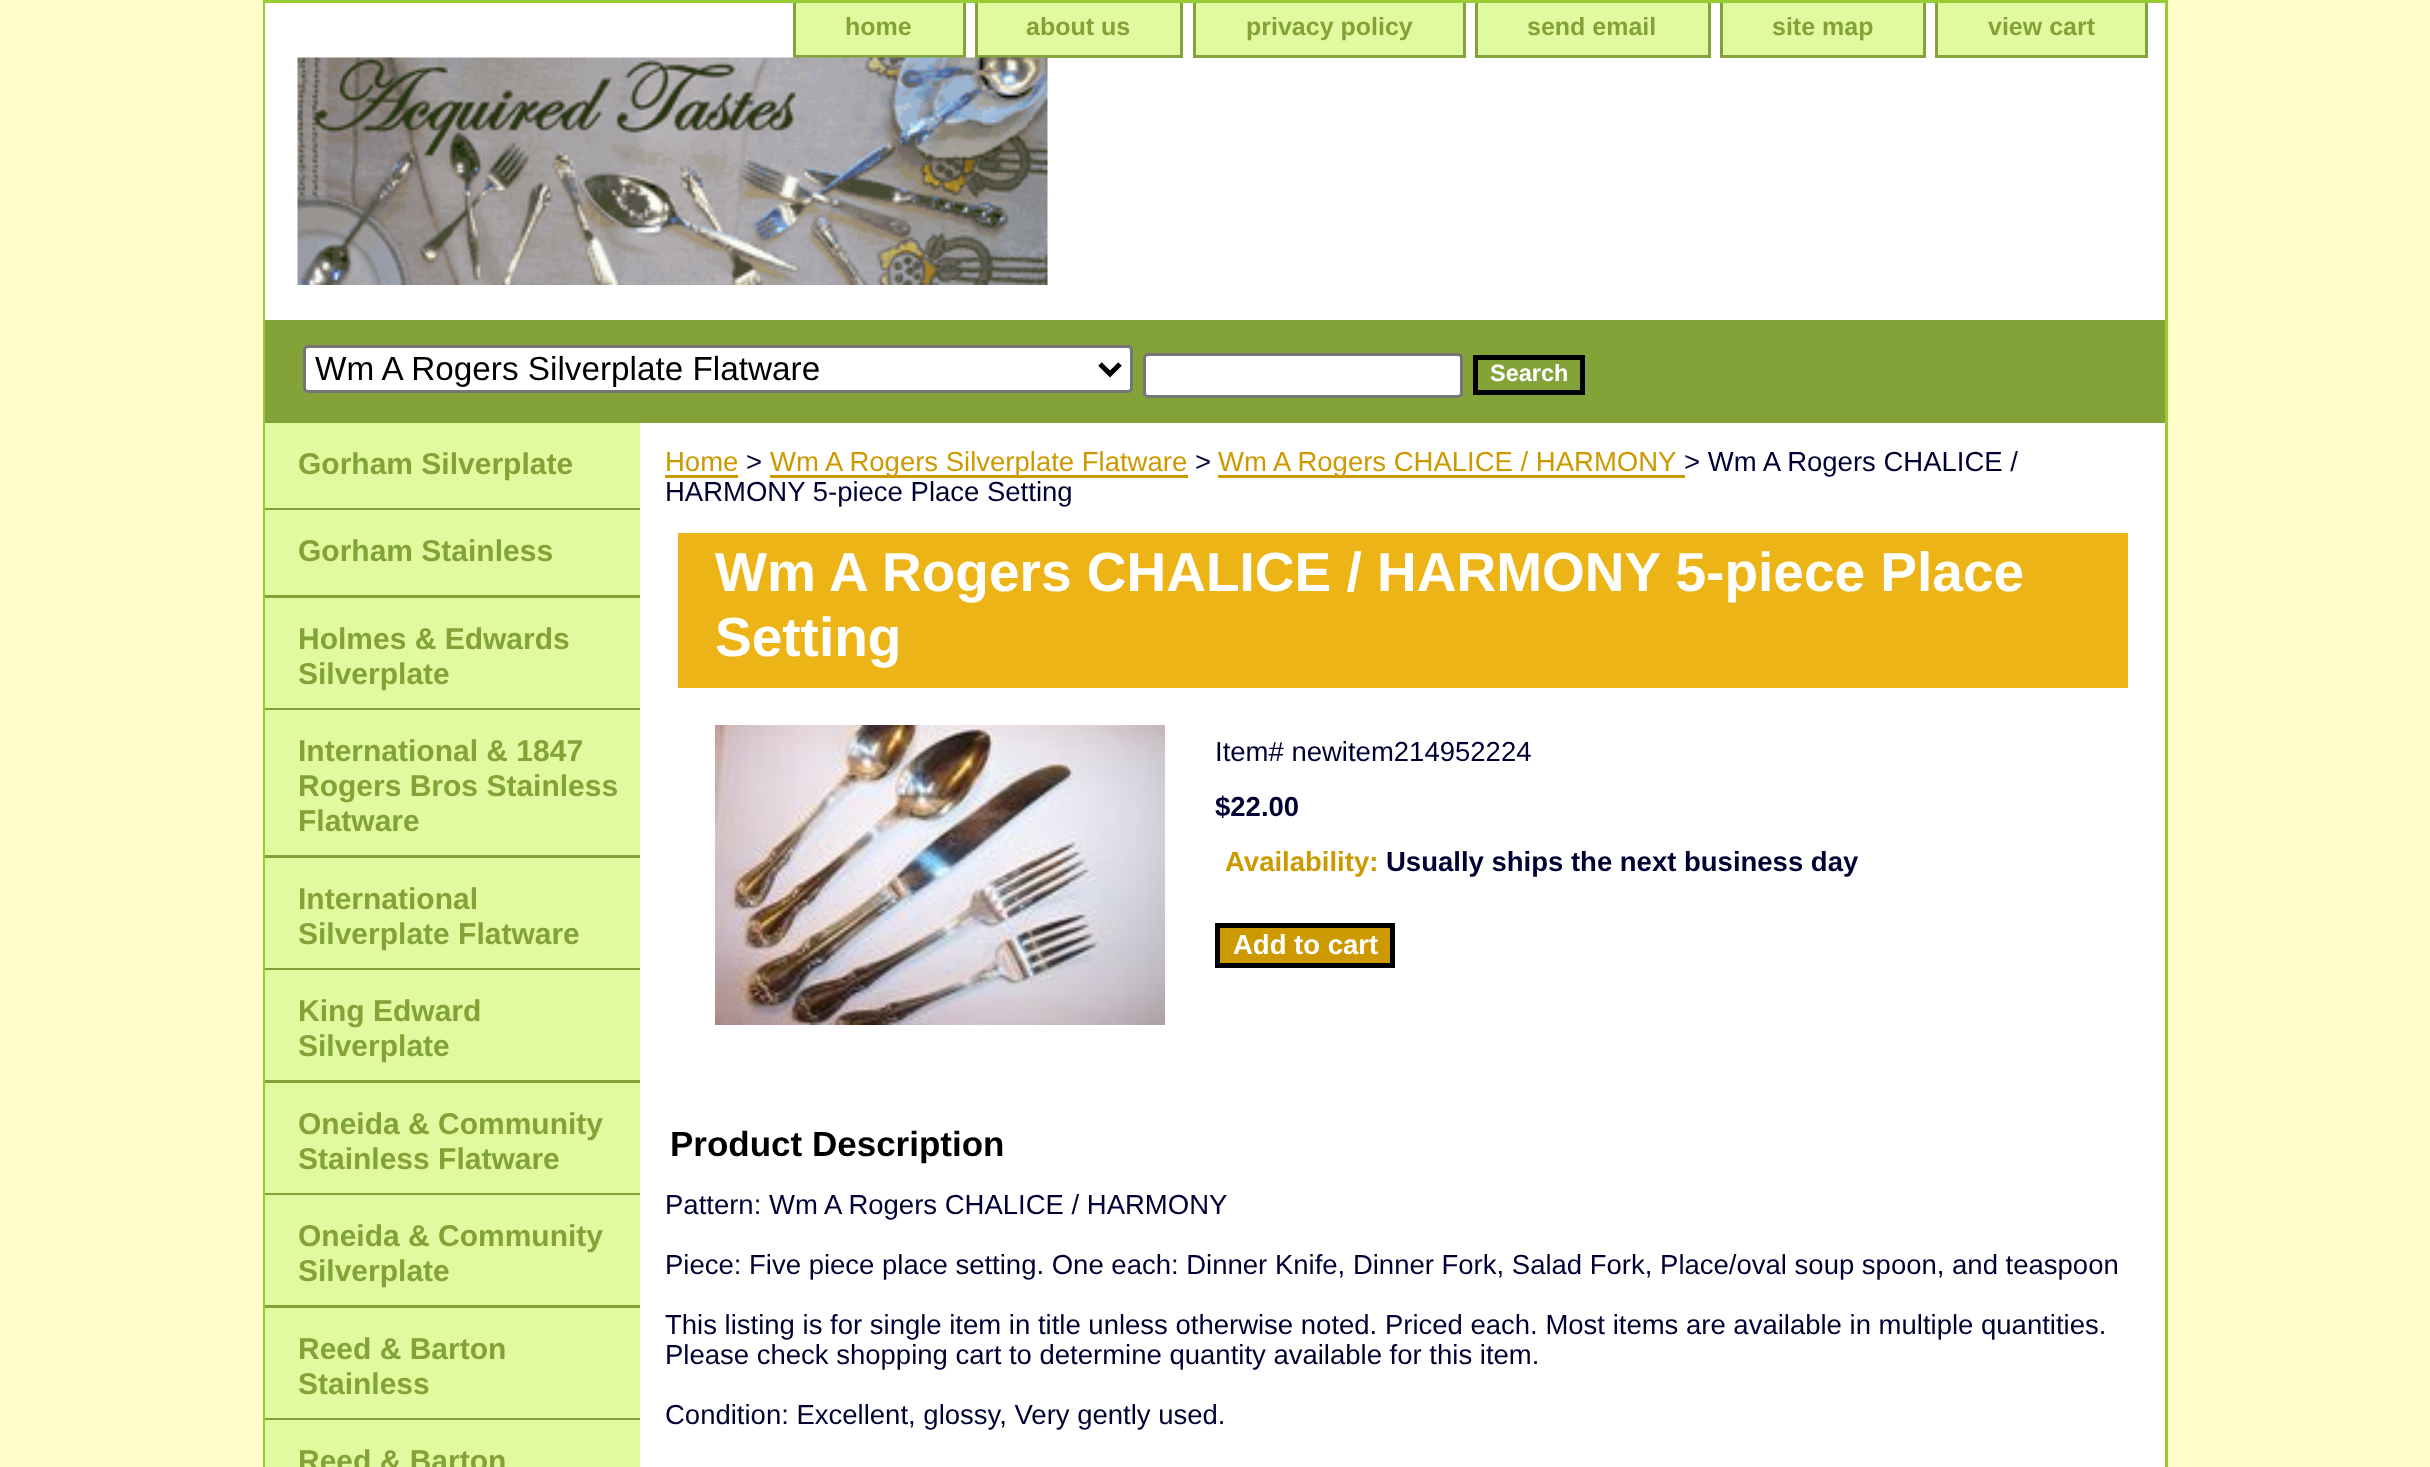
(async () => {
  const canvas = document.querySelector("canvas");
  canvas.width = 2430;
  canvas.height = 1467;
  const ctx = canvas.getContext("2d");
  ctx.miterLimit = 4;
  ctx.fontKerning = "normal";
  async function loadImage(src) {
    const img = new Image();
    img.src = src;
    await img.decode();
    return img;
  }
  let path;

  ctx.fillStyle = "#ffffcc";
  ctx.fillRect(0, 0, 2430, 1467);
  ctx.strokeStyle = "#99cc33";
  ctx.lineWidth = 3;
  ctx.strokeRect(264.5, 1.5, 1902, 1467);
  for (const [x, y, w, h, color] of [
    [265, 3, 1900, 317, "#ffffff"],
    [796, 3, 167, 52, "#e0fa9f"],
    [963, 3, 3, 55, "#83a338"],
    [793, 55, 172, 3, "#83a338"],
    [793, 3, 3, 55, "#83a338"],
    [978, 3, 202, 52, "#e0fa9f"],
    [1180, 3, 3, 55, "#83a338"],
    [975, 55, 208, 3, "#83a338"],
    [975, 3, 3, 55, "#83a338"],
    [1196, 3, 267, 52, "#e0fa9f"],
    [1463, 3, 3, 55, "#83a338"],
    [1193, 55, 272, 3, "#83a338"],
    [1193, 3, 3, 55, "#83a338"],
    [1478, 3, 230, 52, "#e0fa9f"],
    [1708, 3, 3, 55, "#83a338"],
    [1475, 55, 235, 3, "#83a338"],
    [1475, 3, 3, 55, "#83a338"],
    [1723, 3, 200, 52, "#e0fa9f"],
    [1923, 3, 3, 55, "#83a338"],
    [1720, 55, 205, 3, "#83a338"],
    [1720, 3, 3, 55, "#83a338"],
    [1938, 3, 207, 52, "#e0fa9f"],
    [2145, 3, 3, 55, "#83a338"],
    [1935, 55, 213, 3, "#83a338"],
    [1935, 3, 3, 55, "#83a338"],
  ]) {
    ctx.fillStyle = color;
    ctx.fillRect(x, y, w, h);
  }
  ctx.drawImage(await loadImage("img/1.png"), 297, 57, 751, 228);
  ctx.fillRect(265, 320, 1900, 103);
  ctx.fillStyle = "#ffffff";
  ctx.beginPath();
  ctx.roundRect(304.5, 346.5, 827, 45, 3.5);
  ctx.fill();
  ctx.strokeStyle = "#767676";
  ctx.stroke();
  path = new Path2D("M1100 364L1110 374L1120 364");
  ctx.strokeStyle = "#000000";
  ctx.lineWidth = 5;
  ctx.stroke(path);
  ctx.beginPath();
  ctx.roundRect(1144.5, 354.5, 317, 42, 3.5);
  ctx.fill();
  ctx.strokeStyle = "#767676";
  ctx.lineWidth = 3;
  ctx.stroke();
  ctx.strokeStyle = "#000000";
  ctx.lineWidth = 5;
  ctx.strokeRect(1475.5, 357.5, 107, 35);
  for (const [x, y, w, h, color] of [
    [640, 423, 1525, 1044, "#ffffff"],
    [265, 423, 375, 995, "#e0fa9f"],
    [265, 508, 375, 2, "#83a338"],
    [265, 595, 375, 3, "#83a338"],
    [265, 708, 375, 2, "#83a338"],
    [265, 855, 375, 3, "#83a338"],
    [265, 968, 375, 2, "#83a338"],
    [265, 1080, 375, 3, "#83a338"],
    [265, 1193, 375, 2, "#83a338"],
    [265, 1305, 375, 3, "#83a338"],
    [265, 1418, 375, 2, "#83a338"],
    [265, 1420, 375, 47, "#e0fa9f"],
    [665, 475, 73, 3, "#cc9900"],
    [770, 475, 418, 3, "#cc9900"],
    [1218, 475, 467, 3, "#cc9900"],
    [678, 533, 1450, 155, "#ecb417"],
  ]) {
    ctx.fillStyle = color;
    ctx.fillRect(x, y, w, h);
  }
  ctx.drawImage(await loadImage("img/2.png"), 715, 725, 450, 300);
  ctx.fillStyle = "#cc9900";
  ctx.beginPath();
  ctx.rect(1217.5, 925.5, 175, 40);
  ctx.fill();
  ctx.stroke();
  ctx.font = "bold 25px Liberation Sans";
  ctx.fillStyle = "#83a338";
  for (const [text, x, y] of [
    ["home", 845, 35],
    ["about us", 1026, 35],
    ["privacy policy", 1246, 35],
    ["send email", 1527, 35],
    ["site map", 1772, 35],
    ["view cart", 1988, 35],
  ]) {
    ctx.fillText(text, x, y);
  }
  ctx.font = "33.3px Liberation Sans";
  ctx.fillStyle = "#000000";
  ctx.fillText("Wm A Rogers Silverplate Flatware", 315, 380);
  ctx.font = "bold 23.5px Liberation Sans";
  ctx.fillStyle = "#ffffff";
  ctx.fillText("Search", 1490, 381);
  ctx.font = "bold 30px Liberation Sans";
  ctx.fillStyle = "#83a338";
  for (const [text, x, y] of [
    ["Gorham Silverplate", 298, 474],
    ["Gorham Stainless", 298, 561],
    ["Holmes & Edwards", 298, 649],
    ["Silverplate", 298, 684],
    ["International & 1847", 298, 761],
    ["Rogers Bros Stainless", 298, 796],
    ["Flatware", 298, 831],
    ["International", 298, 909],
    ["Silverplate Flatware", 298, 944],
    ["King Edward", 298, 1021],
    ["Silverplate", 298, 1056],
    ["Oneida & Community", 298, 1134],
    ["Stainless Flatware", 298, 1169],
    ["Oneida & Community", 298, 1246],
    ["Silverplate", 298, 1281],
    ["Reed & Barton", 298, 1359],
    ["Stainless", 298, 1394],
    ["Reed & Barton", 298, 1471],
  ]) {
    ctx.fillText(text, x, y);
  }
  ctx.font = "27.5px Liberation Sans";
  ctx.fillStyle = "#cc9900";
  ctx.fillText("Home", 665, 471);
  ctx.fillStyle = "#000033";
  ctx.fillText(">", 746, 471);
  ctx.fillStyle = "#cc9900";
  ctx.fillText("Wm A Rogers Silverplate Flatware", 770, 471);
  ctx.fillStyle = "#000033";
  ctx.fillText(">", 1195, 471);
  ctx.fillStyle = "#cc9900";
  ctx.fillText("Wm A Rogers CHALICE / HARMONY", 1218, 471);
  ctx.fillStyle = "#000033";
  ctx.fillText("> Wm A Rogers CHALICE /", 1684, 471);
  ctx.fillText("HARMONY 5-piece Place Setting", 665, 501);
  ctx.font = "bold 55px Liberation Sans";
  ctx.fillStyle = "#ffffff";
  ctx.fillText("Wm A Rogers CHALICE / HARMONY 5-piece Place", 715, 591);
  ctx.fillText("Setting", 715, 656);
  ctx.font = "27.5px Liberation Sans";
  ctx.fillStyle = "#000033";
  ctx.fillText("Item# newitem214952224", 1215, 761);
  ctx.font = "bold 27.5px Liberation Sans";
  ctx.fillText("$22.00", 1215, 816);
  ctx.fillStyle = "#cc9900";
  ctx.fillText("Availability:", 1225, 871);
  ctx.fillStyle = "#000033";
  ctx.fillText("Usually ships the next business day", 1386, 871);
  ctx.fillStyle = "#ffffff";
  ctx.fillText("Add to cart", 1233, 954);
  ctx.font = "bold 35px Liberation Sans";
  ctx.fillStyle = "#000000";
  ctx.fillText("Product Description", 670, 1156);
  ctx.font = "27.5px Liberation Sans";
  ctx.fillStyle = "#000033";
  for (const [text, x, y] of [
    ["Pattern: Wm A Rogers CHALICE / HARMONY", 665, 1214],
    ["Piece: Five piece place setting. One each: Dinner Knife, Dinner Fork, Salad Fork, Place/oval soup spoon, and teaspoon", 665, 1274],
    ["This listing is for single item in title unless otherwise noted. Priced each. Most items are available in multiple quantities.", 665, 1334],
    ["Please check shopping cart to determine quantity available for this item.", 665, 1364],
    ["Condition: Excellent, glossy, Very gently used.", 665, 1424],
  ]) {
    ctx.fillText(text, x, y);
  }
})();
